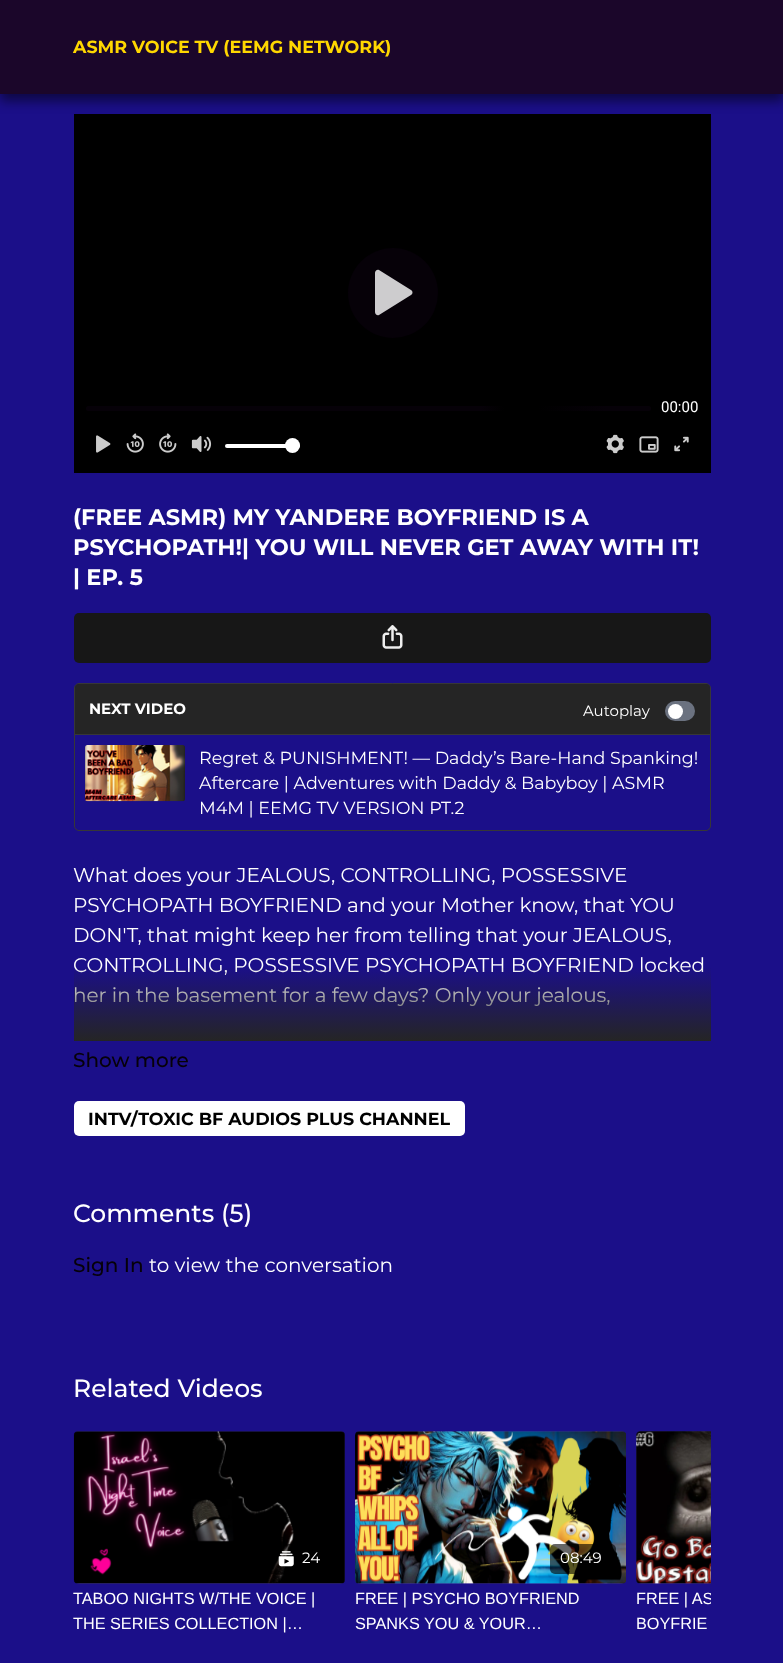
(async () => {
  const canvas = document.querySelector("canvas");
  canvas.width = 783;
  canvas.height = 1663;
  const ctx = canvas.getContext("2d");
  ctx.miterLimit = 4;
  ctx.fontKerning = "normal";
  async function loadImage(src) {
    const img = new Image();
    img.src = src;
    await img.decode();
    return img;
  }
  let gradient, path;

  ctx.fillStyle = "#1b0f89";
  ctx.fillRect(0, 0, 783, 1663);
  ctx.fillStyle = "#000000";
  ctx.fillRect(74, 114, 637, 359);
  ctx.fillStyle = "rgba(0, 0, 0, 0.5)";
  ctx.filter = "blur(6px)";
  ctx.beginPath();
  ctx.rect(0, 8, 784, 93);
  ctx.fill();
  ctx.filter = "none";
  ctx.fillStyle = "#1b062a";
  ctx.fillRect(0, 0, 783, 94);
  ctx.fillStyle = "#060108";
  ctx.beginPath();
  ctx.arc(393, 293, 45, 0, Math.PI * 2);
  ctx.fill();
  ctx.fillStyle = "#cdccce";
  path = new Path2D("M379 270C377 269 375 271 375 273V312C375 314 377 316 379 315L411 295C413 294 413 291 411 290Z");
  ctx.fill(path);
  gradient = ctx.createLinearGradient(86, 411, 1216, 411);
  gradient.addColorStop(0.35, "#060108");
  gradient.addColorStop(0.37, "#000000");
  gradient.addColorStop(0.4, "#000000");
  gradient.addColorStop(0.46, "#060108");
  gradient.addColorStop(1, "#060108");
  ctx.fillStyle = gradient;
  ctx.beginPath();
  ctx.roundRect(86, 406, 565, 5, 2.5);
  ctx.fill();
  ctx.drawImage(await loadImage("img/1.png"), 96, 435, 15, 18);
  ctx.drawImage(await loadImage("img/2.png"), 126, 433, 18, 20);
  ctx.drawImage(await loadImage("img/3.png"), 159, 433, 18, 20);
  ctx.drawImage(await loadImage("img/4.png"), 191, 436, 21, 16);
  ctx.fillStyle = "#ffffff";
  ctx.beginPath();
  ctx.roundRect(225, 444, 75, 4, 2);
  ctx.fill();
  ctx.beginPath();
  ctx.arc(292.5, 445.5, 7.5, 0, Math.PI * 2);
  ctx.fill();
  ctx.drawImage(await loadImage("img/5.png"), 606, 434, 18, 20);
  ctx.drawImage(await loadImage("img/6.png"), 639, 436, 20, 17);
  ctx.drawImage(await loadImage("img/7.png"), 674, 436, 15, 16);
  ctx.fillStyle = "#171717";
  ctx.beginPath();
  ctx.roundRect(74, 613, 637, 50, 5);
  ctx.fill();
  ctx.drawImage(await loadImage("img/8.png"), 382, 625, 21, 24);
  ctx.beginPath();
  ctx.roundRect(74.5, 683.5, 636, 147, 4.5);
  ctx.strokeStyle = "#373737";
  ctx.stroke();
  ctx.fillStyle = "#252525";
  ctx.beginPath();
  ctx.roundRect(75, 684, 635, 50, [4, 4, 0, 0]);
  ctx.fill();
  ctx.fillStyle = "#373737";
  ctx.fillRect(75, 734, 635, 1);
  ctx.fillStyle = "#6b7280";
  ctx.beginPath();
  ctx.roundRect(665, 701, 30, 20, 10);
  ctx.fill();
  ctx.fillStyle = "#ffffff";
  ctx.beginPath();
  ctx.arc(675.5, 711.5, 7.5, 0, Math.PI * 2);
  ctx.fill();
  ctx.drawImage(await loadImage("img/9.png"), 85, 745, 100, 57);
  ctx.beginPath();
  ctx.roundRect(74, 1101, 391, 35, 5);
  ctx.fill();
  gradient = ctx.createLinearGradient(74, 1508, 345, 1508);
  gradient.addColorStop(0.08, "#392e98");
  gradient.addColorStop(0.18, "#362c97");
  gradient.addColorStop(0.33, "#342996");
  ctx.fillStyle = gradient;
  ctx.beginPath();
  ctx.roundRect(74, 1431, 271, 153, 5);
  ctx.fill();
  ctx.drawImage(await loadImage("img/10.png"), 73, 1431, 272, 153);
  ctx.fillStyle = "rgba(0, 0, 0, 0.6)";
  ctx.beginPath();
  ctx.roundRect(266, 1544, 69, 30, 5);
  ctx.fill();
  ctx.drawImage(await loadImage("img/11.png"), 278, 1551, 16, 16);
  gradient = ctx.createLinearGradient(355, 1508, 626, 1508);
  gradient.addColorStop(0.08, "#392e98");
  gradient.addColorStop(0.18, "#362c97");
  gradient.addColorStop(0.33, "#342996");
  ctx.fillStyle = gradient;
  ctx.beginPath();
  ctx.roundRect(355, 1431, 271, 153, 5);
  ctx.fill();
  ctx.drawImage(await loadImage("img/12.png"), 355, 1431, 271, 153);
  ctx.fillStyle = "rgba(0, 0, 0, 0.6)";
  ctx.beginPath();
  ctx.roundRect(550, 1544, 66, 30, 5);
  ctx.fill();
  gradient = ctx.createLinearGradient(636, 1508, 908, 1508);
  gradient.addColorStop(0.08, "#392e98");
  gradient.addColorStop(0.18, "#362c97");
  gradient.addColorStop(0.33, "#342996");
  ctx.fillStyle = gradient;
  ctx.beginPath();
  ctx.roundRect(636, 1431, 75, 153, [5, 0, 0, 5]);
  ctx.fill();
  ctx.drawImage(await loadImage("img/13.png"), 636, 1431, 75, 153);
  ctx.font = "bold 17.5px Montserrat";
  ctx.fillStyle = "#ffd700";
  ctx.fillText("ASMR VOICE TV (EEMG NETWORK)", 73, 53);
  ctx.font = "15px Roboto";
  ctx.fillStyle = "#ffffff";
  ctx.fillText("00:00", 661, 412);
  ctx.font = "bold 22.5px Montserrat";
  for (const [text, x, y] of [
    ["(FREE ASMR) MY YANDERE BOYFRIEND IS A", 73, 525],
    ["PSYCHOPATH!| YOU WILL NEVER GET AWAY WITH IT!", 73, 555],
    ["| EP. 5", 73, 585],
  ]) {
    ctx.fillText(text, x, y);
  }
  ctx.font = "bold 15px Montserrat";
  ctx.fillText("NEXT VIDEO", 89, 714);
  ctx.font = "15px Montserrat";
  ctx.fillText("Autoplay", 583, 716);
  ctx.font = "17.5px Montserrat";
  for (const [text, x, y] of [
    ["Regret & PUNISHMENT! — Daddy’s Bare-Hand Spanking!", 199, 764],
    ["Aftercare | Adventures with Daddy & Babyboy | ASMR", 199, 789],
    ["M4M | EEMG TV VERSION PT.2", 199, 814],
  ]) {
    ctx.fillText(text, x, y);
  }
  ctx.font = "20px Montserrat";
  for (const [text, x, y] of [
    ["What does your JEALOUS, CONTROLLING, POSSESSIVE", 73, 882],
    ["PSYCHOPATH BOYFRIEND and your Mother know, that YOU", 73, 912],
    ["DON'T, that might keep her from telling that your JEALOUS,", 73, 942],
    ["CONTROLLING, POSSESSIVE PSYCHOPATH BOYFRIEND locked", 73, 972],
    ["her in the basement for a few days? Only your jealous,", 73, 1002],
  ]) {
    ctx.fillText(text, x, y);
  }
  gradient = ctx.createLinearGradient(393, 966, 393, 1041);
  gradient.addColorStop(0, "rgba(37, 37, 37, 0)");
  gradient.addColorStop(1, "#252525");
  ctx.fillStyle = gradient;
  ctx.fillRect(74, 968, 637, 73);
  ctx.font = "500 20px Montserrat";
  ctx.fillStyle = "#060108";
  ctx.fillText("Show more", 73, 1067);
  ctx.font = "bold 17.5px Montserrat";
  ctx.fillStyle = "#000000";
  ctx.fillText("INTV/TOXIC BF AUDIOS PLUS CHANNEL", 88, 1125);
  ctx.font = "500 25px Montserrat";
  ctx.fillStyle = "#ffffff";
  ctx.fillText("Comments (5)", 73, 1222);
  ctx.font = "500 20px Montserrat";
  ctx.fillStyle = "#060108";
  ctx.fillText("Sign In", 73, 1272);
  ctx.font = "20px Montserrat";
  ctx.fillStyle = "#ffffff";
  ctx.fillText("to view the conversation", 149, 1272);
  ctx.font = "500 25px Montserrat";
  ctx.fillText("Related Videos", 73, 1397);
  ctx.font = "15px Montserrat";
  ctx.fillText("24", 302, 1563);
  ctx.font = "16.25px Liberation Sans";
  ctx.fillText("TABOO NIGHTS W/THE VOICE |", 73, 1604);
  ctx.fillText("THE SERIES COLLECTION |…", 73, 1629);
  ctx.font = "15px Montserrat";
  ctx.fillText("08:49", 560, 1563);
  ctx.font = "16.25px Liberation Sans";
  ctx.fillText("FREE | PSYCHO BOYFRIEND", 355, 1604);
  ctx.fillText("SPANKS YOU & YOUR…", 355, 1629);
  ctx.save();
  ctx.beginPath();
  ctx.rect(636, 1588, 75, 48);
  ctx.clip();
  ctx.fillText("FREE | AS", 636, 1604);
  ctx.restore();
  ctx.fillText("BOYFRIE", 636, 1629);
})();
